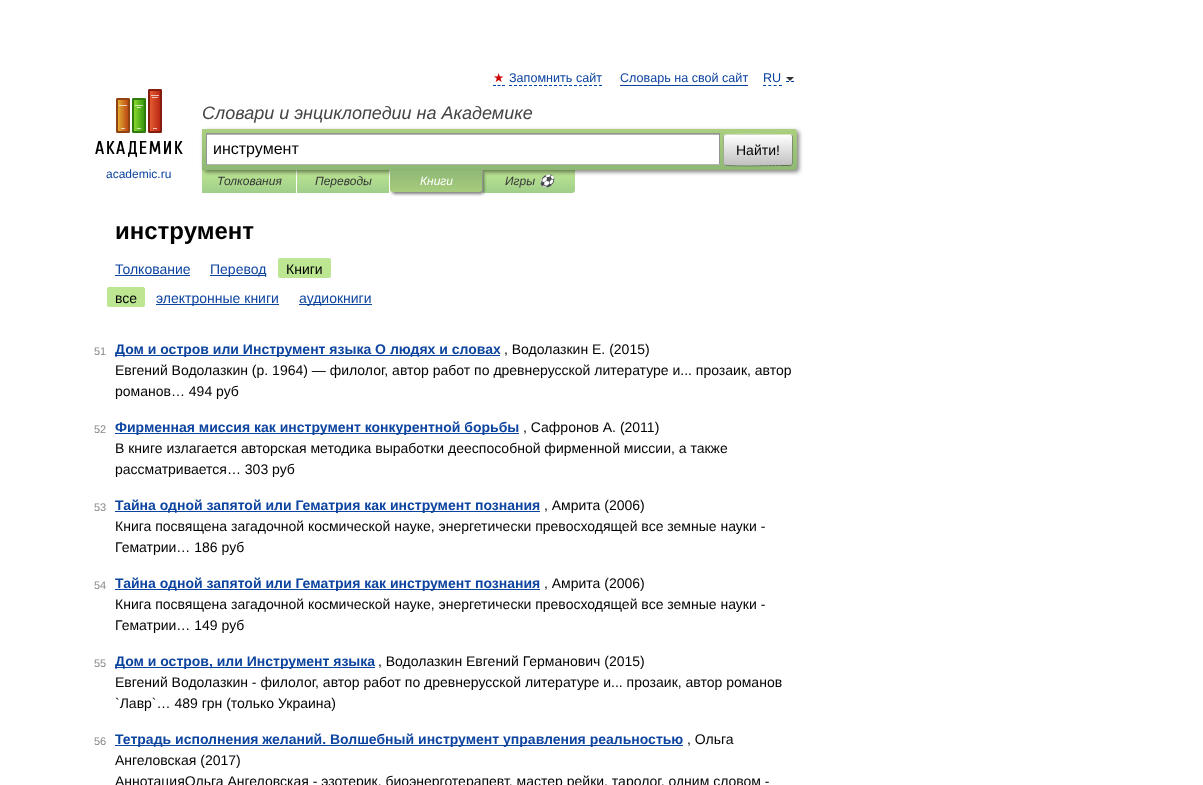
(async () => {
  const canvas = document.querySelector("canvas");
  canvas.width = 1203;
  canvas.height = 785;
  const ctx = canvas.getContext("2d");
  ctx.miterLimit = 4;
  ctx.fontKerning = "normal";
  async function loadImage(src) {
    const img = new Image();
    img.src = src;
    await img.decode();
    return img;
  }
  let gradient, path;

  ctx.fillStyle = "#ffffff";
  ctx.fillRect(0, 0, 1203, 785);
  path = new Path2D("M493 85.5H496M497.5 85.5H500.5M502 85.5H505");
  ctx.strokeStyle = "#0044aa";
  ctx.stroke(path);
  path = new Path2D("M509 85.5H602");
  ctx.setLineDash([3, 2]);
  ctx.stroke(path);
  ctx.fillStyle = "#0d44a0";
  ctx.fillRect(620, 85, 128, 1);
  path = new Path2D("M763 85.5H782");
  ctx.setLineDash([3, 2.33]);
  ctx.stroke(path);
  path = new Path2D("M786 81.5H789M791 81.5H794");
  ctx.setLineDash([]);
  ctx.stroke(path);
  ctx.fillStyle = "#333333";
  path = new Path2D("M786 77H794L790 81Z");
  ctx.fill(path);
  gradient = ctx.createLinearGradient(249, 170, 249, 193);
  gradient.addColorStop(0, "#bde693");
  gradient.addColorStop(1, "#a0ce8a");
  ctx.fillStyle = gradient;
  ctx.fillRect(202, 170, 94, 23);
  gradient = ctx.createLinearGradient(343, 170, 343, 193);
  gradient.addColorStop(0, "#bde693");
  gradient.addColorStop(1, "#a0ce8a");
  ctx.fillStyle = gradient;
  ctx.fillRect(297, 170, 92, 23);
  gradient = ctx.createLinearGradient(529, 170, 529, 193);
  gradient.addColorStop(0, "#bde693");
  gradient.addColorStop(1, "#a0ce8a");
  ctx.fillStyle = gradient;
  ctx.beginPath();
  ctx.roundRect(483, 170, 92, 23, [0, 0, 3, 0]);
  ctx.fill();
  ctx.fillStyle = "rgba(0, 0, 0, 0.5)";
  ctx.filter = "blur(2px)";
  ctx.beginPath();
  ctx.roundRect(204, 131, 595, 41, 3);
  ctx.fill();
  ctx.filter = "none";
  gradient = ctx.createLinearGradient(500, 129, 500, 170);
  gradient.addColorStop(0, "#abcf7e");
  gradient.addColorStop(1, "#8eb874");
  ctx.fillStyle = gradient;
  ctx.beginPath();
  ctx.roundRect(202, 129, 595, 41, [0, 3, 3, 0]);
  ctx.fill();
  for (const [x, y, w, h, color] of [
    [207, 135, 512, 29, "#ffffff"],
    [207, 134, 512, 1, "#b3b3b3"],
    [206, 133, 514, 1, "#949494"],
    [719, 133, 1, 32, "#949494"],
    [206, 164, 514, 1, "#b4b4b4"],
    [206, 133, 1, 32, "#949494"],
  ]) {
    ctx.fillStyle = color;
    ctx.fillRect(x, y, w, h);
  }
  ctx.save();
  ctx.beginPath();
  ctx.roundRect(723, 134, 70, 32, 3);
  ctx.clip();
  gradient = ctx.createLinearGradient(758, 105, 758, 135);
  gradient.addColorStop(0, "#ffffff");
  gradient.addColorStop(1, "#c1c1c1");
  ctx.fillStyle = gradient;
  ctx.fillRect(723, 134, 70, 1);
  gradient = ctx.createLinearGradient(758, 135, 758, 165);
  gradient.addColorStop(0, "#ffffff");
  gradient.addColorStop(1, "#c1c1c1");
  ctx.fillStyle = gradient;
  ctx.fillRect(723, 135, 70, 30);
  gradient = ctx.createLinearGradient(758, 165, 758, 195);
  gradient.addColorStop(0, "#ffffff");
  gradient.addColorStop(1, "#c1c1c1");
  ctx.fillStyle = gradient;
  ctx.fillRect(723, 165, 70, 1);
  ctx.restore();
  path = new Path2D("M724 135H724.5C726.5 133.5 773 134.5 779.5 134.5H790L792 135");
  ctx.strokeStyle = "#d1e4bc";
  ctx.stroke(path);
  path = new Path2D("M792 135C792 135.5 792.5 136.5 792.5 137V163C792.5 163.5 792 164.5 792 165");
  ctx.strokeStyle = "#7a8e69";
  ctx.stroke(path);
  path = new Path2D("M792 165L790 165.5H779.5C773 165.5 726.5 166.5 724.5 165H724");
  ctx.strokeStyle = "#5d7250";
  ctx.stroke(path);
  path = new Path2D("M724 165C724 164.5 723.5 163.5 723.5 163V137C723.5 136.5 724 135.5 724 135");
  ctx.strokeStyle = "#9aae89";
  ctx.stroke(path);
  ctx.drawImage(await loadImage("img/1.png"), 95, 89, 88, 68);
  ctx.fillStyle = "rgba(0, 0, 0, 0.5)";
  ctx.filter = "blur(1.5px)";
  ctx.beginPath();
  ctx.roundRect(392, 172, 92, 22, 3);
  ctx.fill();
  ctx.filter = "none";
  gradient = ctx.createLinearGradient(436, 170, 436, 192);
  gradient.addColorStop(0, "#8fb875");
  gradient.addColorStop(1, "#a7cc7d");
  ctx.fillStyle = gradient;
  ctx.beginPath();
  ctx.roundRect(390, 170, 92, 22, [0, 0, 3, 3]);
  ctx.fill();
  ctx.fillStyle = "#0d44a0";
  ctx.fillRect(115, 275, 75, 1);
  ctx.fillRect(210, 275, 56, 1);
  ctx.fillStyle = "#bde693";
  ctx.beginPath();
  ctx.roundRect(278, 258, 53, 20, 2);
  ctx.fill();
  ctx.beginPath();
  ctx.roundRect(107, 287, 38, 20, 2);
  ctx.fill();
  for (const [x, y, w, h, color] of [
    [156, 304, 123, 1, "#0d44a0"],
    [299, 304, 73, 1, "#0d44a0"],
    [115, 355, 385, 1, "#0d44a0"],
    [115, 433, 404, 1, "#0d44a0"],
    [115, 511, 425, 1, "#0d44a0"],
    [115, 589, 425, 1, "#0d44a0"],
    [115, 667, 260, 1, "#0d44a0"],
    [115, 745, 568, 1, "#0d44a0"],
  ]) {
    ctx.fillStyle = color;
    ctx.fillRect(x, y, w, h);
  }
  ctx.font = "12.6px DejaVu Sans";
  ctx.fillStyle = "#cc0000";
  ctx.fillText("★", 493, 82);
  ctx.font = "12.6px Liberation Sans";
  ctx.fillStyle = "#0d44a0";
  for (const [text, x, y] of [
    ["Запомнить сайт", 509, 82],
    ["Словарь на свой сайт", 620, 82],
    ["RU", 763, 82],
  ]) {
    ctx.fillText(text, x, y);
  }
  ctx.font = "italic 18px Liberation Sans";
  ctx.fillStyle = "#454545";
  ctx.fillText("Словари и энциклопедии на Академике", 202, 119);
  ctx.font = "16px Liberation Sans";
  ctx.fillStyle = "#000000";
  ctx.fillText("инструмент", 213, 154);
  ctx.font = "14px Liberation Sans";
  ctx.fillText("Найти!", 736, 155);
  ctx.font = "12px Liberation Sans";
  ctx.fillStyle = "#0d44a0";
  ctx.fillText("academic.ru", 106, 178);
  ctx.font = "italic 12px Liberation Sans";
  ctx.fillStyle = "#353535";
  ctx.fillText("Толкования", 217, 185);
  ctx.fillText("Переводы", 315, 185);
  ctx.fillStyle = "#ffffff";
  ctx.fillText("Книги", 420, 185);
  ctx.fillStyle = "#353535";
  ctx.fillText("Игры", 505, 185);
  ctx.font = "italic 12px Noto Color Emoji";
  ctx.fillText("⚽", 539, 185);
  ctx.font = "bold 24px Liberation Sans";
  ctx.fillStyle = "#000000";
  ctx.fillText("инструмент", 115, 239);
  ctx.font = "14px Liberation Sans";
  ctx.fillStyle = "#0d44a0";
  ctx.fillText("Толкование", 115, 274);
  ctx.fillText("Перевод", 210, 274);
  ctx.fillStyle = "#000000";
  ctx.fillText("Книги", 286, 274);
  ctx.fillText("все", 115, 303);
  ctx.fillStyle = "#0d44a0";
  ctx.fillText("электронные книги", 156, 303);
  ctx.fillText("аудиокниги", 299, 303);
  ctx.font = "11px Liberation Sans";
  ctx.fillStyle = "#898989";
  ctx.fillText("51", 94, 355);
  ctx.font = "bold 14px Liberation Sans";
  ctx.fillStyle = "#0d44a0";
  ctx.fillText("Дом и остров или Инструмент языка О людях и словах", 115, 354);
  ctx.font = "14px Liberation Sans";
  ctx.fillStyle = "#000000";
  for (const [text, x, y] of [
    [", Водолазкин Е. (2015)", 504, 354],
    ["Евгений Водолазкин (р. 1964) — филолог, автор работ по древнерусской литературе и... прозаик, автор", 115, 375],
    ["романов… 494 руб", 115, 396],
  ]) {
    ctx.fillText(text, x, y);
  }
  ctx.font = "11px Liberation Sans";
  ctx.fillStyle = "#898989";
  ctx.fillText("52", 94, 433);
  ctx.font = "bold 14px Liberation Sans";
  ctx.fillStyle = "#0d44a0";
  ctx.fillText("Фирменная миссия как инструмент конкурентной борьбы", 115, 432);
  ctx.font = "14px Liberation Sans";
  ctx.fillStyle = "#000000";
  for (const [text, x, y] of [
    [", Сафронов А. (2011)", 523, 432],
    ["В книге излагается авторская методика выработки дееспособной фирменной миссии, а также", 115, 453],
    ["рассматривается… 303 руб", 115, 474],
  ]) {
    ctx.fillText(text, x, y);
  }
  ctx.font = "11px Liberation Sans";
  ctx.fillStyle = "#898989";
  ctx.fillText("53", 94, 511);
  ctx.font = "bold 14px Liberation Sans";
  ctx.fillStyle = "#0d44a0";
  ctx.fillText("Тайна одной запятой или Гематрия как инструмент познания", 115, 510);
  ctx.font = "14px Liberation Sans";
  ctx.fillStyle = "#000000";
  for (const [text, x, y] of [
    [", Амрита (2006)", 544, 510],
    ["Книга посвящена загадочной космической науке, энергетически превосходящей все земные науки -", 115, 531],
    ["Гематрии… 186 руб", 115, 552],
  ]) {
    ctx.fillText(text, x, y);
  }
  ctx.font = "11px Liberation Sans";
  ctx.fillStyle = "#898989";
  ctx.fillText("54", 94, 589);
  ctx.font = "bold 14px Liberation Sans";
  ctx.fillStyle = "#0d44a0";
  ctx.fillText("Тайна одной запятой или Гематрия как инструмент познания", 115, 588);
  ctx.font = "14px Liberation Sans";
  ctx.fillStyle = "#000000";
  for (const [text, x, y] of [
    [", Амрита (2006)", 544, 588],
    ["Книга посвящена загадочной космической науке, энергетически превосходящей все земные науки -", 115, 609],
    ["Гематрии… 149 руб", 115, 630],
  ]) {
    ctx.fillText(text, x, y);
  }
  ctx.font = "11px Liberation Sans";
  ctx.fillStyle = "#898989";
  ctx.fillText("55", 94, 667);
  ctx.font = "bold 14px Liberation Sans";
  ctx.fillStyle = "#0d44a0";
  ctx.fillText("Дом и остров, или Инструмент языка", 115, 666);
  ctx.font = "14px Liberation Sans";
  ctx.fillStyle = "#000000";
  for (const [text, x, y] of [
    [", Водолазкин Евгений Германович (2015)", 378, 666],
    ["Евгений Водолазкин - филолог, автор работ по древнерусской литературе и... прозаик, автор романов", 115, 687],
    ["`Лавр`… 489 грн (только Украина)", 115, 708],
  ]) {
    ctx.fillText(text, x, y);
  }
  ctx.font = "11px Liberation Sans";
  ctx.fillStyle = "#898989";
  ctx.fillText("56", 94, 745);
  ctx.font = "bold 14px Liberation Sans";
  ctx.fillStyle = "#0d44a0";
  ctx.fillText("Тетрадь исполнения желаний. Волшебный инструмент управления реальностью", 115, 744);
  ctx.font = "14px Liberation Sans";
  ctx.fillStyle = "#000000";
  for (const [text, x, y] of [
    [", Ольга", 687, 744],
    ["Ангеловская (2017)", 115, 765],
    ["АннотацияОльга Ангеловская - эзотерик, биоэнерготерапевт, мастер рейки, таролог, одним словом -", 115, 786],
  ]) {
    ctx.fillText(text, x, y);
  }
})();
